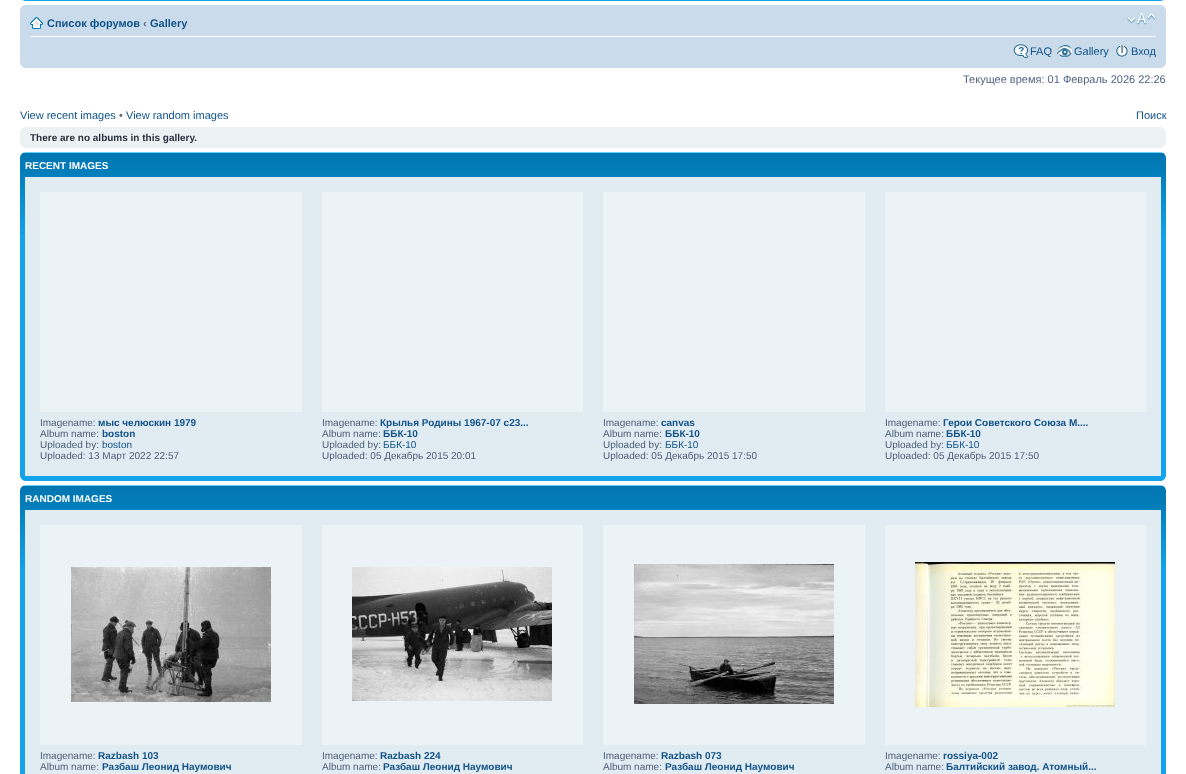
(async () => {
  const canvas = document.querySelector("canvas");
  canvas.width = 1186;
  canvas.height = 774;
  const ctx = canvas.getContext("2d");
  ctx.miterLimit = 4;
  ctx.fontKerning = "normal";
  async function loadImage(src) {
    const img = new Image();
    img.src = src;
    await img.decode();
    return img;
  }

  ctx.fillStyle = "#ffffff";
  ctx.fillRect(0, 0, 1186, 774);
  ctx.fillStyle = "#12a3eb";
  ctx.fillRect(20, 0, 1146, 1);
  ctx.drawImage(await loadImage("img/1.png"), 20, 0, 5, 1);
  ctx.drawImage(await loadImage("img/2.png"), 1161, 0, 5, 1);
  ctx.fillStyle = "#cadceb";
  ctx.fillRect(20, 5, 1146, 63);
  ctx.drawImage(await loadImage("img/3.png"), 20, 5, 5, 5);
  ctx.drawImage(await loadImage("img/4.png"), 1161, 5, 5, 5);
  ctx.fillStyle = "#ffffff";
  ctx.fillRect(30, 36, 1126, 1);
  ctx.drawImage(await loadImage("img/5.png"), 30, 17, 13, 12);
  ctx.drawImage(await loadImage("img/6.png"), 1127, 13, 29, 12);
  ctx.drawImage(await loadImage("img/7.png"), 1013, 44, 16, 14);
  ctx.drawImage(await loadImage("img/8.png"), 1057, 45, 15, 12);
  ctx.drawImage(await loadImage("img/9.png"), 1116, 45, 12, 12);
  ctx.drawImage(await loadImage("img/10.png"), 20, 63, 5, 5);
  ctx.drawImage(await loadImage("img/11.png"), 1161, 63, 5, 5);
  ctx.fillStyle = "#ecf1f3";
  ctx.fillRect(20, 127, 1146, 21);
  ctx.drawImage(await loadImage("img/12.png"), 20, 127, 5, 5);
  ctx.drawImage(await loadImage("img/13.png"), 1161, 127, 5, 5);
  ctx.drawImage(await loadImage("img/14.png"), 20, 143, 5, 5);
  ctx.drawImage(await loadImage("img/15.png"), 1161, 143, 5, 5);
  ctx.fillStyle = "#12a3eb";
  ctx.fillRect(20, 234, 1146, 247);
  ctx.drawImage(await loadImage("img/16.png"), 20, 152, 1146, 82);
  ctx.drawImage(await loadImage("img/17.png"), 20, 152, 5, 5);
  ctx.drawImage(await loadImage("img/18.png"), 1161, 152, 5, 5);
  for (const [x, y, w, h, color] of [
    [25, 177, 1136, 299, "#e1ebf2"],
    [40, 192, 262, 220, "#ecf3f7"],
    [322, 192, 261, 220, "#ecf3f7"],
    [603, 192, 262, 220, "#ecf3f7"],
    [885, 192, 261, 220, "#ecf3f7"],
  ]) {
    ctx.fillStyle = color;
    ctx.fillRect(x, y, w, h);
  }
  ctx.drawImage(await loadImage("img/19.png"), 20, 476, 5, 5);
  ctx.drawImage(await loadImage("img/20.png"), 1161, 476, 5, 5);
  ctx.fillStyle = "#12a3eb";
  ctx.fillRect(20, 567, 1146, 207);
  ctx.drawImage(await loadImage("img/16.png"), 20, 485, 1146, 82);
  ctx.drawImage(await loadImage("img/17.png"), 20, 485, 5, 5);
  ctx.drawImage(await loadImage("img/18.png"), 1161, 485, 5, 5);
  ctx.fillStyle = "#e1ebf2";
  ctx.fillRect(25, 510, 1136, 264);
  ctx.fillStyle = "#ecf3f7";
  ctx.fillRect(40, 525, 262, 220);
  ctx.drawImage(await loadImage("img/21.png"), 71, 567, 200, 135);
  ctx.fillRect(322, 525, 261, 220);
  ctx.drawImage(await loadImage("img/22.png"), 352, 567, 200, 134);
  ctx.fillRect(603, 525, 262, 220);
  ctx.drawImage(await loadImage("img/23.png"), 634, 564, 200, 140);
  ctx.fillRect(885, 525, 261, 220);
  ctx.drawImage(await loadImage("img/24.png"), 915, 562, 200, 145);
  ctx.font = "bold 11px Liberation Sans";
  ctx.fillStyle = "#105289";
  ctx.fillText("Список форумов", 47, 27);
  ctx.fillStyle = "#536482";
  ctx.fillText("‹", 143, 27);
  ctx.fillStyle = "#105289";
  ctx.fillText("Gallery", 150, 27);
  ctx.font = "11px Liberation Sans";
  for (const [text, x, y] of [
    ["FAQ", 1030, 55],
    ["Gallery", 1074, 55],
    ["Вход", 1131, 55],
  ]) {
    ctx.fillText(text, x, y);
  }
  ctx.fillStyle = "#536482";
  ctx.fillText("Текущее время: 01 Февраль 2026 22:26", 963, 83);
  ctx.fillStyle = "#105289";
  ctx.fillText("View recent images", 20, 119);
  ctx.fillStyle = "#536482";
  ctx.fillText("•", 119, 119);
  ctx.fillStyle = "#105289";
  ctx.fillText("View random images", 126, 119);
  ctx.fillText("Поиск", 1136, 119);
  ctx.font = "bold 10px Liberation Sans";
  ctx.fillStyle = "#28313f";
  ctx.fillText("There are no albums in this gallery.", 30, 141);
  ctx.fillStyle = "#ffffff";
  ctx.fillText("RECENT IMAGES", 25, 169);
  ctx.font = "10px Liberation Sans";
  ctx.fillStyle = "#4c5d77";
  ctx.fillText("Imagename:", 40, 426);
  ctx.font = "bold 10px Liberation Sans";
  ctx.fillStyle = "#105289";
  ctx.fillText("мыс челюскин 1979", 98, 426);
  ctx.font = "10px Liberation Sans";
  ctx.fillStyle = "#4c5d77";
  ctx.fillText("Album name:", 40, 437);
  ctx.font = "bold 10px Liberation Sans";
  ctx.fillStyle = "#105289";
  ctx.fillText("boston", 102, 437);
  ctx.font = "10px Liberation Sans";
  ctx.fillStyle = "#4c5d77";
  ctx.fillText("Uploaded by:", 40, 448);
  ctx.fillStyle = "#105289";
  ctx.fillText("boston", 102, 448);
  ctx.fillStyle = "#4c5d77";
  ctx.fillText("Uploaded: 13 Март 2022 22:57", 40, 459);
  ctx.fillText("Imagename:", 322, 426);
  ctx.font = "bold 10px Liberation Sans";
  ctx.fillStyle = "#105289";
  ctx.fillText("Крылья Родины 1967-07 с23...", 380, 426);
  ctx.font = "10px Liberation Sans";
  ctx.fillStyle = "#4c5d77";
  ctx.fillText("Album name:", 322, 437);
  ctx.font = "bold 10px Liberation Sans";
  ctx.fillStyle = "#105289";
  ctx.fillText("ББК-10", 383, 437);
  ctx.font = "10px Liberation Sans";
  ctx.fillStyle = "#4c5d77";
  ctx.fillText("Uploaded by:", 322, 448);
  ctx.fillStyle = "#105289";
  ctx.fillText("ББК-10", 383, 448);
  ctx.fillStyle = "#4c5d77";
  ctx.fillText("Uploaded: 05 Декабрь 2015 20:01", 322, 459);
  ctx.fillText("Imagename:", 603, 426);
  ctx.font = "bold 10px Liberation Sans";
  ctx.fillStyle = "#105289";
  ctx.fillText("canvas", 661, 426);
  ctx.font = "10px Liberation Sans";
  ctx.fillStyle = "#4c5d77";
  ctx.fillText("Album name:", 603, 437);
  ctx.font = "bold 10px Liberation Sans";
  ctx.fillStyle = "#105289";
  ctx.fillText("ББК-10", 665, 437);
  ctx.font = "10px Liberation Sans";
  ctx.fillStyle = "#4c5d77";
  ctx.fillText("Uploaded by:", 603, 448);
  ctx.fillStyle = "#105289";
  ctx.fillText("ББК-10", 665, 448);
  ctx.fillStyle = "#4c5d77";
  ctx.fillText("Uploaded: 05 Декабрь 2015 17:50", 603, 459);
  ctx.fillText("Imagename:", 885, 426);
  ctx.font = "bold 10px Liberation Sans";
  ctx.fillStyle = "#105289";
  ctx.fillText("Герои Советского Союза М....", 943, 426);
  ctx.font = "10px Liberation Sans";
  ctx.fillStyle = "#4c5d77";
  ctx.fillText("Album name:", 885, 437);
  ctx.font = "bold 10px Liberation Sans";
  ctx.fillStyle = "#105289";
  ctx.fillText("ББК-10", 946, 437);
  ctx.font = "10px Liberation Sans";
  ctx.fillStyle = "#4c5d77";
  ctx.fillText("Uploaded by:", 885, 448);
  ctx.fillStyle = "#105289";
  ctx.fillText("ББК-10", 946, 448);
  ctx.fillStyle = "#4c5d77";
  ctx.fillText("Uploaded: 05 Декабрь 2015 17:50", 885, 459);
  ctx.font = "bold 10px Liberation Sans";
  ctx.fillStyle = "#ffffff";
  ctx.fillText("RANDOM IMAGES", 25, 502);
  ctx.font = "10px Liberation Sans";
  ctx.fillStyle = "#4c5d77";
  ctx.fillText("Imagename:", 40, 759);
  ctx.font = "bold 10px Liberation Sans";
  ctx.fillStyle = "#105289";
  ctx.fillText("Razbash 103", 98, 759);
  ctx.font = "10px Liberation Sans";
  ctx.fillStyle = "#4c5d77";
  ctx.fillText("Album name:", 40, 770);
  ctx.font = "bold 10px Liberation Sans";
  ctx.fillStyle = "#105289";
  ctx.fillText("Разбаш Леонид Наумович", 102, 770);
  ctx.font = "10px Liberation Sans";
  ctx.fillStyle = "#4c5d77";
  ctx.fillText("Imagename:", 322, 759);
  ctx.font = "bold 10px Liberation Sans";
  ctx.fillStyle = "#105289";
  ctx.fillText("Razbash 224", 380, 759);
  ctx.font = "10px Liberation Sans";
  ctx.fillStyle = "#4c5d77";
  ctx.fillText("Album name:", 322, 770);
  ctx.font = "bold 10px Liberation Sans";
  ctx.fillStyle = "#105289";
  ctx.fillText("Разбаш Леонид Наумович", 383, 770);
  ctx.font = "10px Liberation Sans";
  ctx.fillStyle = "#4c5d77";
  ctx.fillText("Imagename:", 603, 759);
  ctx.font = "bold 10px Liberation Sans";
  ctx.fillStyle = "#105289";
  ctx.fillText("Razbash 073", 661, 759);
  ctx.font = "10px Liberation Sans";
  ctx.fillStyle = "#4c5d77";
  ctx.fillText("Album name:", 603, 770);
  ctx.font = "bold 10px Liberation Sans";
  ctx.fillStyle = "#105289";
  ctx.fillText("Разбаш Леонид Наумович", 665, 770);
  ctx.font = "10px Liberation Sans";
  ctx.fillStyle = "#4c5d77";
  ctx.fillText("Imagename:", 885, 759);
  ctx.font = "bold 10px Liberation Sans";
  ctx.fillStyle = "#105289";
  ctx.fillText("rossiya-002", 943, 759);
  ctx.font = "10px Liberation Sans";
  ctx.fillStyle = "#4c5d77";
  ctx.fillText("Album name:", 885, 770);
  ctx.font = "bold 10px Liberation Sans";
  ctx.fillStyle = "#105289";
  ctx.fillText("Балтийский завод. Атомный...", 946, 770);
})();
